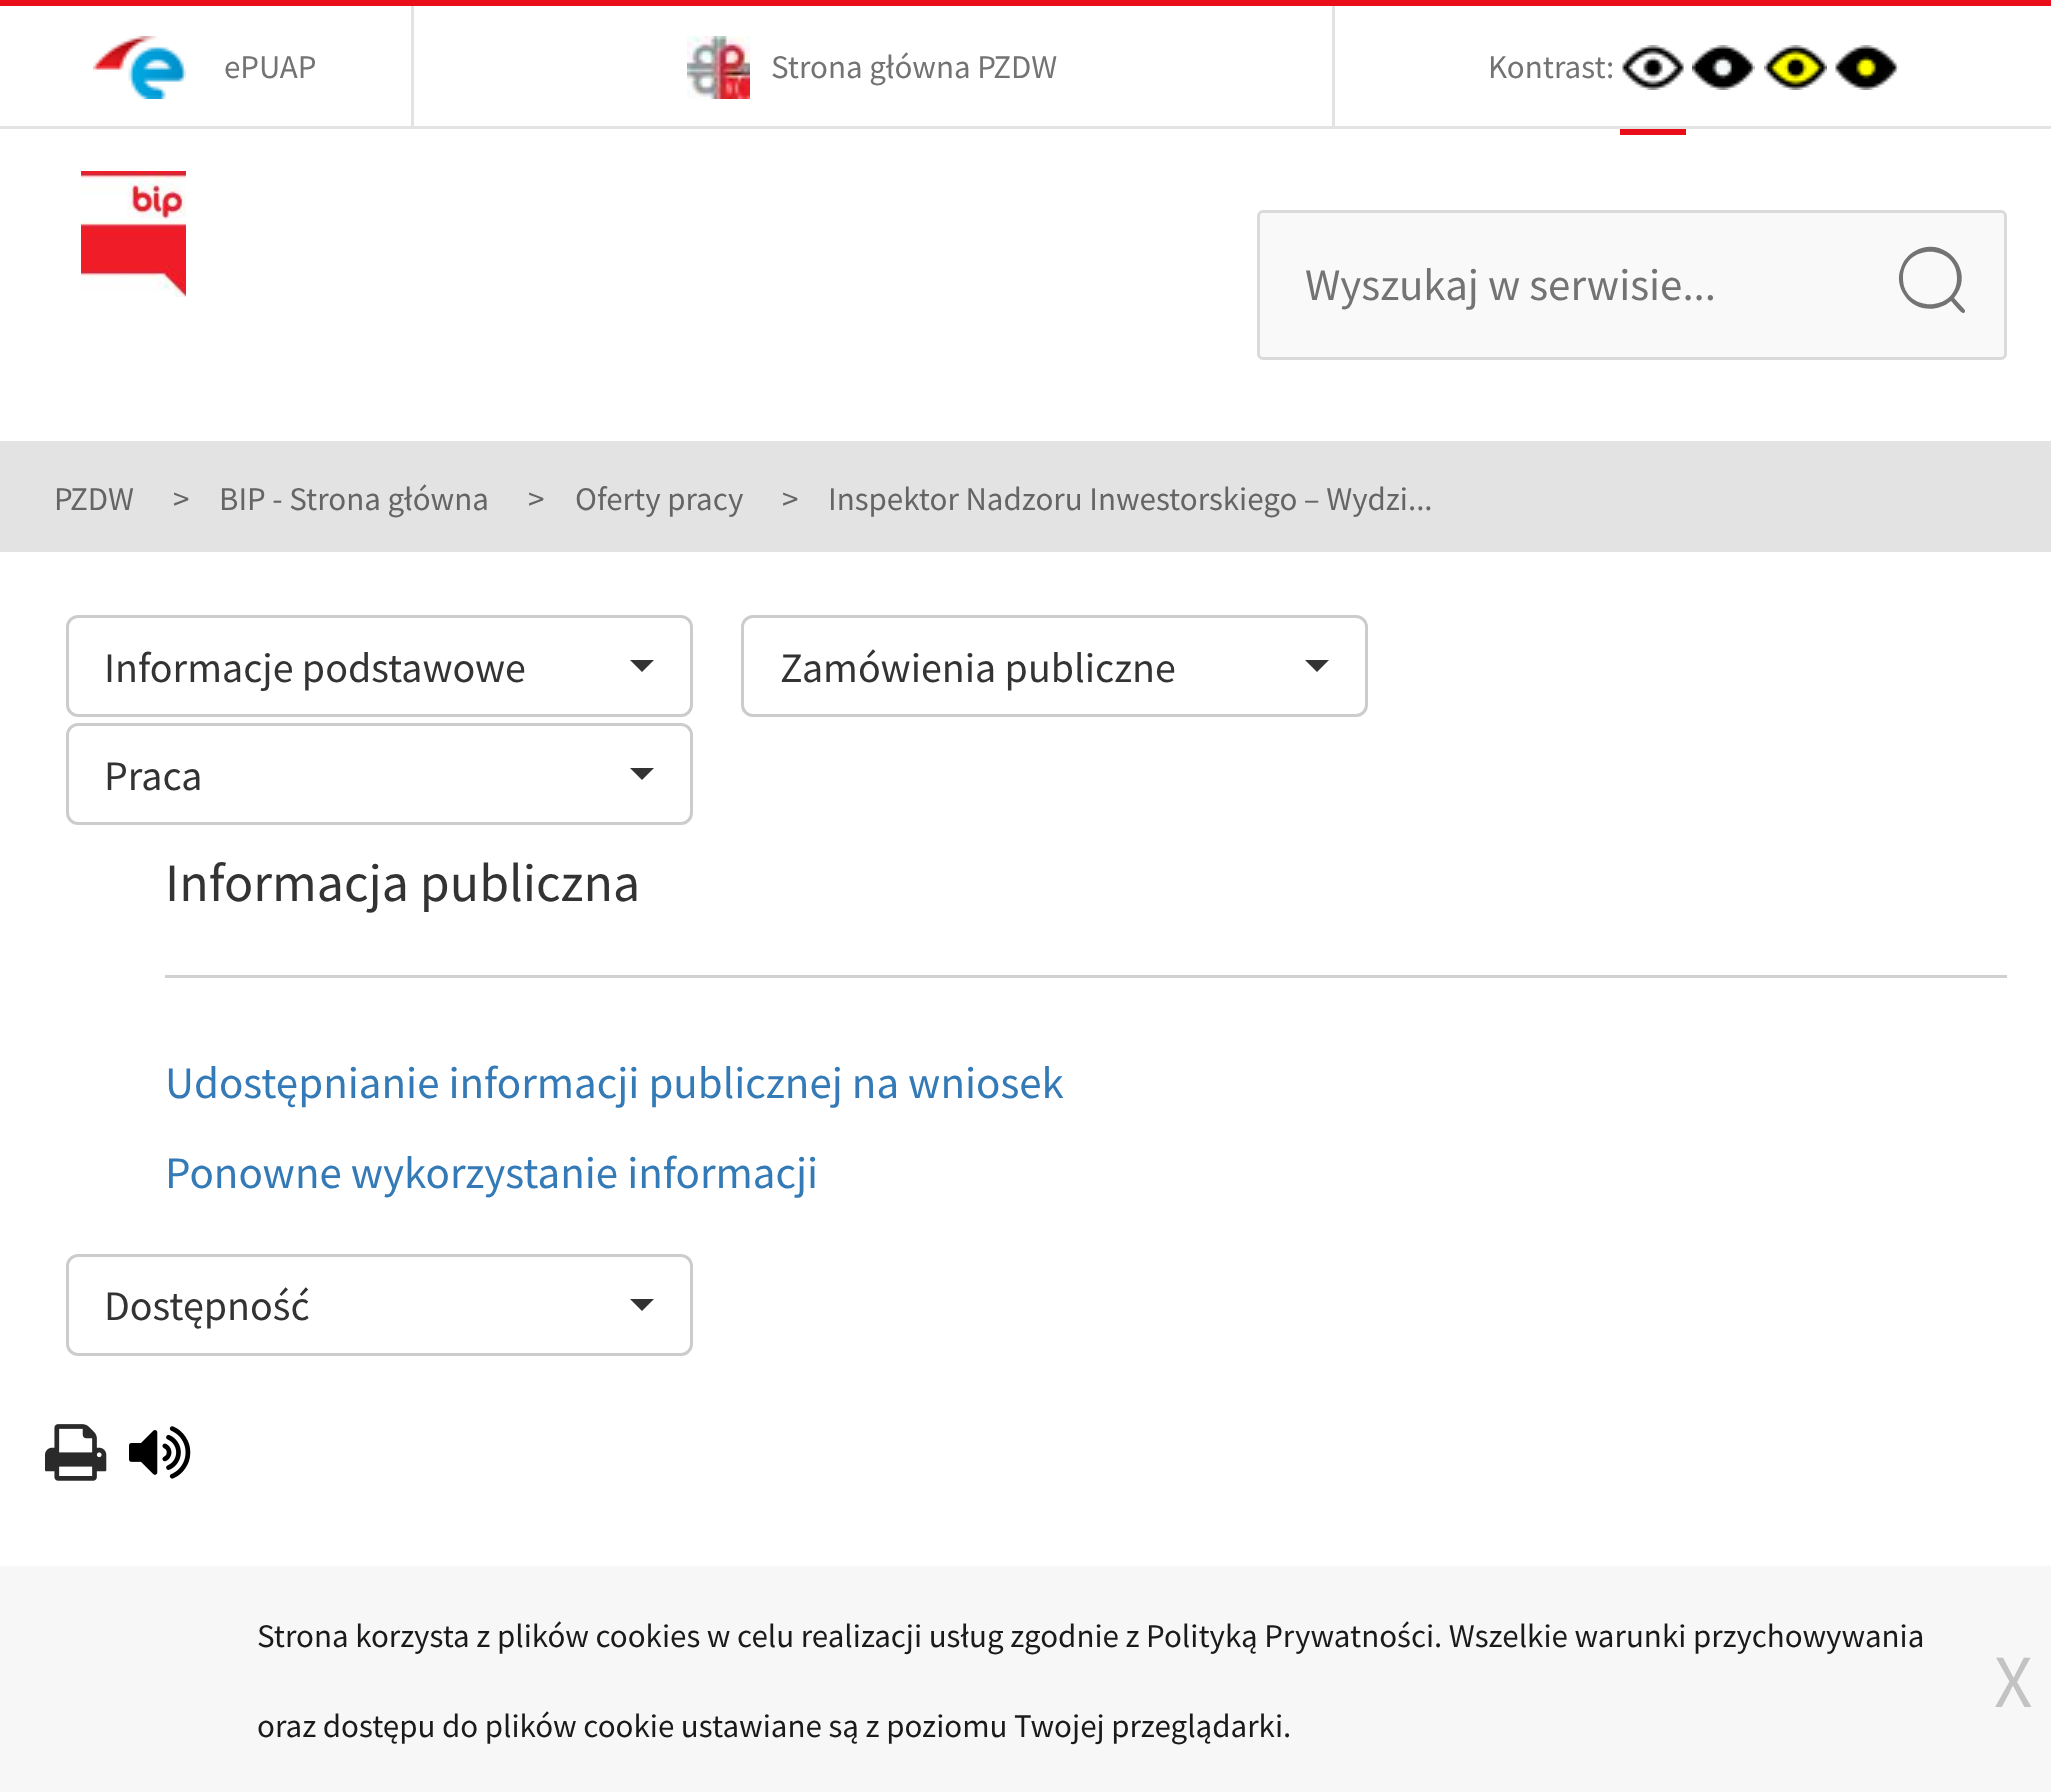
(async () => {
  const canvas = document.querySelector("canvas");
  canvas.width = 2051;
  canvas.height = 1792;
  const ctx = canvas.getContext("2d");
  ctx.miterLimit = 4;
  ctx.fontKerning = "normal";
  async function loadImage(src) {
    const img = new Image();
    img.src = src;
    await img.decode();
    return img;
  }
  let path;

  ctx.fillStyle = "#ffffff";
  ctx.fillRect(0, 0, 2051, 1792);
  ctx.fillStyle = "#ea0e1b";
  ctx.fillRect(0, 0, 2051, 6);
  ctx.fillStyle = "#e3e3e3";
  ctx.fillRect(0, 126, 2051, 3);
  ctx.drawImage(await loadImage("img/1.png"), 93, 36, 93, 63);
  ctx.fillRect(1332, 6, 3, 120);
  ctx.fillRect(411, 6, 3, 120);
  ctx.drawImage(await loadImage("img/2.png"), 687, 36, 63, 63);
  ctx.drawImage(await loadImage("img/3.png"), 1620, 45, 66, 45);
  ctx.drawImage(await loadImage("img/4.png"), 1692, 45, 63, 45);
  ctx.drawImage(await loadImage("img/5.png"), 1764, 45, 63, 45);
  ctx.drawImage(await loadImage("img/6.png"), 1835, 45, 64, 45);
  ctx.fillStyle = "#ea0e1b";
  ctx.fillRect(1620, 129, 66, 6);
  ctx.drawImage(await loadImage("img/7.png"), 81, 171, 105, 126);
  ctx.fillStyle = "#f9f9f9";
  ctx.beginPath();
  ctx.roundRect(1258.5, 211.5, 747, 147, 4.5);
  ctx.fill();
  ctx.strokeStyle = "#dadada";
  ctx.lineWidth = 3;
  ctx.stroke();
  ctx.fillStyle = "#737373";
  path = new Path2D("M1964 309L1954 298C1977 272 1945 234 1915 251C1908 255 1903 261 1901 268C1897 277 1899 288 1905 296C1915 311 1937 313 1951 301C1953 303 1961 313 1963 313C1965 313 1966 311 1964 309ZM1903 278C1903 243 1957 243 1957 278C1957 313 1903 313 1903 278Z");
  ctx.fill(path);
  ctx.fillStyle = "#e3e3e3";
  ctx.fillRect(0, 441, 2051, 111);
  ctx.beginPath();
  ctx.roundRect(67.5, 616.5, 624, 99, 10.5);
  ctx.strokeStyle = "#cccccc";
  ctx.stroke();
  ctx.fillStyle = "#333333";
  path = new Path2D("M630 660H654L642 672Z");
  ctx.fill(path);
  ctx.beginPath();
  ctx.roundRect(742.5, 616.5, 624, 99, 10.5);
  ctx.stroke();
  path = new Path2D("M1305 660H1329L1317 672Z");
  ctx.fill(path);
  ctx.beginPath();
  ctx.roundRect(67.5, 724.5, 624, 99, 10.5);
  ctx.stroke();
  path = new Path2D("M630 768H654L642 780Z");
  ctx.fill(path);
  ctx.fillStyle = "#d0d0d0";
  ctx.fillRect(165, 975, 1842, 3);
  ctx.beginPath();
  ctx.roundRect(67.5, 1255.5, 624, 99, 10.5);
  ctx.stroke();
  ctx.fillStyle = "#333333";
  path = new Path2D("M630 1299H654L642 1311Z");
  ctx.fill(path);
  ctx.drawImage(await loadImage("img/8.png"), 45, 1424, 62, 57);
  ctx.drawImage(await loadImage("img/9.png"), 129, 1426, 62, 53);
  ctx.fillStyle = "#f7f7f7";
  ctx.fillRect(0, 1566, 2051, 226);
  ctx.font = "33px Source Sans Pro";
  ctx.fillStyle = "#737373";
  for (const [text, x, y] of [
    ["ePUAP", 224, 78],
    ["Strona główna PZDW", 771, 78],
    ["Kontrast:", 1488, 78],
  ]) {
    ctx.fillText(text, x, y);
  }
  ctx.font = "45px Source Sans Pro";
  ctx.fillText("Wyszukaj w serwisie...", 1305, 300);
  ctx.font = "33px Source Sans Pro";
  ctx.fillStyle = "#656565";
  for (const [text, x, y] of [
    ["PZDW", 54, 510],
    [">", 173, 510],
    ["BIP - Strona główna", 219, 510],
    [">", 528, 510],
    ["Oferty pracy", 575, 510],
    [">", 782, 510],
    ["Inspektor Nadzoru Inwestorskiego – Wydzi...", 828, 510],
  ]) {
    ctx.fillText(text, x, y);
  }
  ctx.font = "42px Source Sans Pro";
  ctx.fillStyle = "#333333";
  for (const [text, x, y] of [
    ["Informacje podstawowe", 104, 682],
    ["Zamówienia publiczne", 780, 682],
    ["Praca", 104, 790],
  ]) {
    ctx.fillText(text, x, y);
  }
  ctx.font = "54px Source Sans Pro";
  ctx.fillText("Informacja publiczna", 165, 901);
  ctx.font = "45px Source Sans Pro";
  ctx.fillStyle = "#337ab7";
  ctx.fillText("Udostępnianie informacji publicznej na wniosek", 165, 1098);
  ctx.fillText("Ponowne wykorzystanie informacji", 165, 1188);
  ctx.font = "42px Source Sans Pro";
  ctx.fillStyle = "#333333";
  ctx.fillText("Dostępność", 104, 1320);
  ctx.font = "33px Source Sans Pro";
  ctx.fillStyle = "#1a1a1a";
  ctx.fillText("Strona korzysta z plików cookies w celu realizacji usług zgodnie z Polityką Prywatności. Wszelkie warunki przychowywania", 257, 1647);
  ctx.fillText("oraz dostępu do plików cookie ustawiane są z poziomu Twojej przeglądarki.", 257, 1737);
  ctx.font = "75px Source Sans Pro";
  ctx.fillStyle = "#c3c3c3";
  ctx.fillText("X", 1994, 1707);
})();
